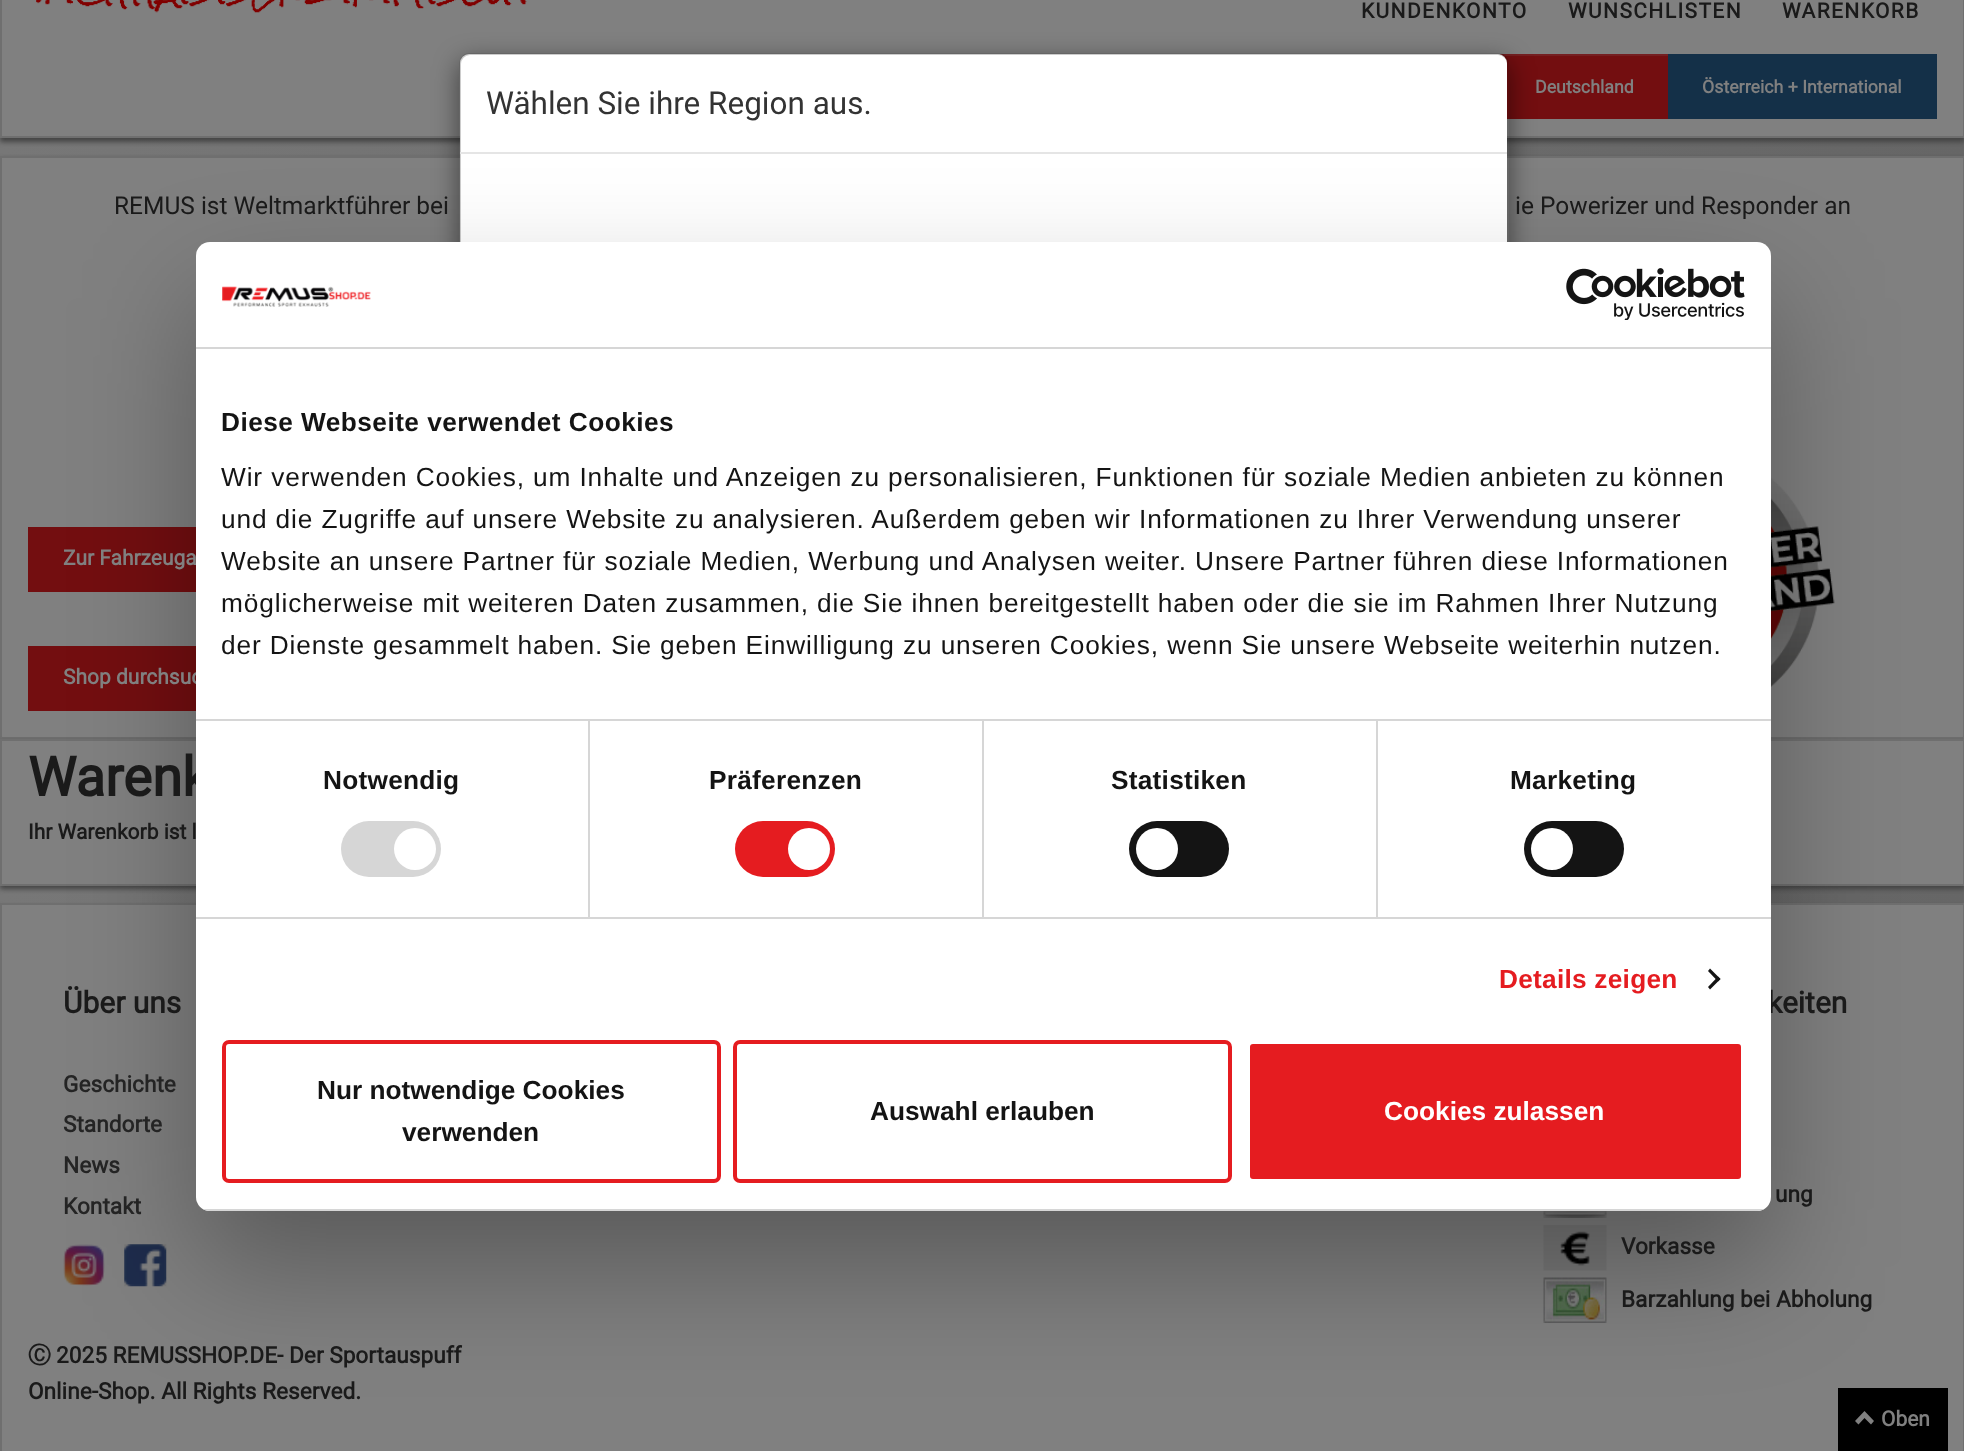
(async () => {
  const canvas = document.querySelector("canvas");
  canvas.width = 1964;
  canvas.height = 1451;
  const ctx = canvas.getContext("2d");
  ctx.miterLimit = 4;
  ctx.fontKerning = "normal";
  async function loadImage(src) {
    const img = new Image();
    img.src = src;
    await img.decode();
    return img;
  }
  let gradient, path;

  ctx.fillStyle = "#ffffff";
  ctx.fillRect(0, 0, 1964, 1451);
  gradient = ctx.createLinearGradient(0, 605, 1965, 605);
  gradient.addColorStop(0, "#777777");
  gradient.addColorStop(1, "#666666");
  ctx.fillStyle = gradient;
  ctx.fillRect(0, 138, 1964, 765);
  ctx.fillStyle = "#444444";
  ctx.filter = "blur(2.5px)";
  ctx.beginPath();
  ctx.rect(0, -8, 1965, 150);
  ctx.fill();
  ctx.filter = "none";
  ctx.fillStyle = "#808080";
  ctx.beginPath();
  ctx.rect(1, -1, 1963, 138);
  ctx.fill();
  ctx.strokeStyle = "#6f6f6f";
  ctx.lineWidth = 2;
  ctx.stroke();
  ctx.drawImage(await loadImage("img/1.png"), 36, 0, 491, 13);
  for (const [x, y, w, h, color] of [
    [1503, 56, 165, 63, "#730e10"],
    [1500, 54, 170, 2, "#751f21"],
    [1668, 54, 269, 65, "#143048"],
  ]) {
    ctx.fillStyle = color;
    ctx.fillRect(x, y, w, h);
  }
  ctx.fillStyle = "#444444";
  ctx.filter = "blur(2.5px)";
  ctx.beginPath();
  ctx.rect(0, 159, 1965, 583);
  ctx.fill();
  ctx.filter = "none";
  ctx.fillStyle = "#808080";
  ctx.beginPath();
  ctx.rect(1, 157, 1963, 581);
  ctx.fill();
  ctx.stroke();
  ctx.fillStyle = "#444444";
  ctx.filter = "blur(2.5px)";
  ctx.beginPath();
  ctx.rect(0, 742, 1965, 147);
  ctx.fill();
  ctx.filter = "none";
  ctx.fillStyle = "#808080";
  ctx.beginPath();
  ctx.rect(1, 740, 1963, 145);
  ctx.fill();
  ctx.stroke();
  ctx.save();
  path = new Path2D("M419 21H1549V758H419ZM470 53H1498C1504 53 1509 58 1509 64V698C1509 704 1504 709 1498 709H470C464 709 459 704 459 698V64C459 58 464 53 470 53Z");
  ctx.clip(path, "evenodd");
  ctx.fillStyle = "rgba(0, 0, 0, 0.5)";
  ctx.filter = "blur(13px)";
  ctx.beginPath();
  ctx.roundRect(459, 61, 1050, 657, 11);
  ctx.fill();
  ctx.filter = "none";
  ctx.restore();
  ctx.fillStyle = "#ffffff";
  ctx.beginPath();
  ctx.roundRect(460, 54, 1047, 653, 9);
  ctx.fill();
  ctx.beginPath();
  ctx.roundRect(460, 54, 1048, 654, 10);
  ctx.strokeStyle = "rgba(0, 0, 0, 0.2)";
  ctx.stroke();
  ctx.fillStyle = "#e5e5e5";
  ctx.fillRect(460, 152, 1047, 2);
  ctx.drawImage(await loadImage("img/2.png"), 1771, 477, 64, 210);
  ctx.fillStyle = "#730e10";
  ctx.fillRect(28, 527, 168, 65);
  ctx.fillRect(28, 646, 168, 65);
  ctx.fillStyle = "#444444";
  ctx.filter = "blur(2.5px)";
  ctx.beginPath();
  ctx.rect(0, 907, 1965, 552);
  ctx.fill();
  ctx.filter = "none";
  ctx.fillStyle = "#808080";
  ctx.beginPath();
  ctx.rect(1, 904, 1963, 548);
  ctx.fill();
  ctx.strokeStyle = "#6f6f6f";
  ctx.stroke();
  ctx.drawImage(await loadImage("img/3.png"), 63, 1244, 42, 42);
  ctx.drawImage(await loadImage("img/4.png"), 124, 1244, 43, 43);
  ctx.drawImage(await loadImage("img/5.png"), 1543, 1211, 64, 7);
  ctx.drawImage(await loadImage("img/6.png"), 1543, 1225, 64, 46);
  ctx.drawImage(await loadImage("img/7.png"), 1543, 1277, 64, 46);
  ctx.fillStyle = "#000000";
  ctx.fillRect(1838, 1388, 110, 63);
  ctx.fillStyle = "#808080";
  path = new Path2D("M1874 1421L1871 1424.5L1864.5 1418L1858.5 1424.5L1855 1421L1864.5 1411Z");
  ctx.fill(path);
  ctx.fillStyle = "rgba(0, 0, 0, 0.3)";
  ctx.filter = "blur(59.5px)";
  ctx.beginPath();
  ctx.roundRect(196, 298, 1575, 969, 14);
  ctx.fill();
  ctx.filter = "none";
  ctx.letterSpacing = "1.4px";
  ctx.font = "bold 21px Roboto";
  ctx.fillStyle = "#1a1a1a";
  for (const [text, x, y] of [
    ["KUNDENKONTO", 1361, 18],
    ["WUNSCHLISTEN", 1568, 18],
    ["WARENKORB", 1782, 18],
  ]) {
    ctx.fillText(text, x, y);
  }
  ctx.letterSpacing = "0px";
  ctx.font = "bold 17.8px Roboto";
  ctx.fillStyle = "#808080";
  ctx.fillText("Deutschland", 1535, 93);
  ctx.fillText("Österreich + International", 1702, 93);
  ctx.font = "31.5px Roboto";
  ctx.fillStyle = "#333333";
  ctx.fillText("Wählen Sie ihre Region aus.", 486, 114);
  ctx.font = "24.5px Roboto";
  ctx.fillStyle = "#1a1a1a";
  ctx.fillText("REMUS ist Weltmarktführer bei", 114, 214);
  ctx.fillText("ie Powerizer und Responder an", 1515, 214);
  ctx.font = "bold 21px Roboto";
  ctx.fillStyle = "#808080";
  ctx.fillText("Zur Fahrzeuga", 63, 565);
  ctx.fillText("Shop durchsuc", 63, 684);
  ctx.font = "bold 54.5px Roboto";
  ctx.fillStyle = "#1a1a1a";
  ctx.fillText("Warenk", 28, 796);
  ctx.font = "bold 21px Roboto";
  ctx.fillText("Ihr Warenkorb ist l", 28, 839);
  ctx.font = "bold 30px Roboto";
  ctx.fillText("Über uns", 63, 1013);
  ctx.font = "bold 22.7px Roboto";
  ctx.fillStyle = "#242424";
  for (const [text, x, y] of [
    ["Geschichte", 63, 1092],
    ["Standorte", 63, 1132],
    ["News", 63, 1173],
    ["Kontakt", 63, 1214],
  ]) {
    ctx.fillText(text, x, y);
  }
  ctx.font = "bold 22.7px WenQuanYi Zen Hei";
  ctx.fillStyle = "#1a1a1a";
  ctx.fillText("Ⓒ", 28, 1363);
  ctx.font = "bold 22.7px Roboto";
  ctx.fillText("2025 REMUSSHOP.DE- Der Sportauspuff", 56, 1363);
  ctx.fillText("Online-Shop. All Rights Reserved.", 28, 1399);
  ctx.font = "bold 30px Roboto";
  ctx.fillText("keiten", 1767, 1013);
  ctx.font = "bold 22.7px Roboto";
  for (const [text, x, y] of [
    ["ung", 1775, 1202],
    ["Vorkasse", 1621, 1254],
    ["Barzahlung bei Abholung", 1621, 1307],
  ]) {
    ctx.fillText(text, x, y);
  }
  ctx.fillStyle = "#ffffff";
  ctx.beginPath();
  ctx.roundRect(196, 242, 1575, 969, 14);
  ctx.fill();
  ctx.fillStyle = "#d6d6d6";
  ctx.fillRect(196, 347, 1575, 2);
  ctx.drawImage(await loadImage("img/8.png"), 222, 286, 149, 21);
  ctx.drawImage(await loadImage("img/9.png"), 1566, 268, 179, 52);
  ctx.fillRect(196, 719, 1575, 2);
  ctx.letterSpacing = "0.45px";
  ctx.font = "bold 26.25px Liberation Sans";
  ctx.fillStyle = "#141414";
  ctx.fillText("Diese Webseite verwendet Cookies", 221, 431);
  ctx.letterSpacing = "0.88px";
  ctx.font = "26.25px Liberation Sans";
  for (const [text, x, y] of [
    ["Wir verwenden Cookies, um Inhalte und Anzeigen zu personalisieren, Funktionen für soziale Medien anbieten zu können", 221, 486],
    ["und die Zugriffe auf unsere Website zu analysieren. Außerdem geben wir Informationen zu Ihrer Verwendung unserer", 221, 528],
    ["Website an unsere Partner für soziale Medien, Werbung und Analysen weiter. Unsere Partner führen diese Informationen", 221, 570],
    ["möglicherweise mit weiteren Daten zusammen, die Sie ihnen bereitgestellt haben oder die sie im Rahmen Ihrer Nutzung", 221, 612],
    ["der Dienste gesammelt haben. Sie geben Einwilligung zu unseren Cookies, wenn Sie unsere Webseite weiterhin nutzen.", 221, 654],
  ]) {
    ctx.fillText(text, x, y);
  }
  ctx.fillStyle = "#d6d6d6";
  ctx.fillRect(196, 917, 1575, 2);
  ctx.fillRect(588, 721, 2, 196);
  ctx.letterSpacing = "0.25px";
  ctx.font = "bold 26.25px Liberation Sans";
  ctx.fillStyle = "#141414";
  ctx.fillText("Notwendig", 323, 789);
  ctx.fillStyle = "#d6d6d6";
  ctx.beginPath();
  ctx.roundRect(341, 821, 100, 56, 28);
  ctx.fill();
  ctx.fillStyle = "#ffffff";
  ctx.beginPath();
  ctx.arc(415, 849, 21, 0, Math.PI * 2);
  ctx.fill();
  ctx.fillStyle = "#d6d6d6";
  ctx.fillRect(982, 721, 2, 196);
  ctx.fillStyle = "#141414";
  ctx.fillText("Präferenzen", 709, 789);
  ctx.fillStyle = "#e51c20";
  ctx.beginPath();
  ctx.roundRect(735, 821, 100, 56, 28);
  ctx.fill();
  ctx.fillStyle = "#ffffff";
  ctx.beginPath();
  ctx.arc(809, 849, 21, 0, Math.PI * 2);
  ctx.fill();
  ctx.fillStyle = "#d6d6d6";
  ctx.fillRect(1376, 721, 2, 196);
  ctx.fillStyle = "#141414";
  ctx.fillText("Statistiken", 1111, 789);
  ctx.beginPath();
  ctx.roundRect(1129, 821, 100, 56, 28);
  ctx.fill();
  ctx.fillStyle = "#ffffff";
  ctx.beginPath();
  ctx.arc(1157, 849, 21, 0, Math.PI * 2);
  ctx.fill();
  ctx.fillStyle = "#141414";
  ctx.fillText("Marketing", 1510, 789);
  ctx.beginPath();
  ctx.roundRect(1524, 821, 100, 56, 28);
  ctx.fill();
  ctx.fillStyle = "#ffffff";
  ctx.beginPath();
  ctx.arc(1552, 849, 21, 0, Math.PI * 2);
  ctx.fill();
  ctx.fillStyle = "#e51c20";
  ctx.fillText("Details zeigen", 1499, 988);
  ctx.fillStyle = "#141414";
  path = new Path2D("M1710 968.5L1720.5 979L1718 981.5L1708 971Z");
  ctx.fill(path);
  path = new Path2D("M1718 976.5L1720.5 979L1710 989.5L1708 987Z");
  ctx.fill(path);
  ctx.save();
  ctx.beginPath();
  ctx.roundRect(196, 242, 1575, 969, 14);
  ctx.clip();
  ctx.fillStyle = "#d6d6d6";
  ctx.fillRect(196, 1209, 1575, 2);
  ctx.restore();
  ctx.beginPath();
  ctx.roundRect(224, 1042, 495, 139, 5);
  ctx.strokeStyle = "#e51c20";
  ctx.lineWidth = 4;
  ctx.stroke();
  ctx.letterSpacing = "0px";
  ctx.fillText("Nur notwendige Cookies", 317, 1099);
  ctx.fillText("verwenden", 402, 1141);
  ctx.beginPath();
  ctx.roundRect(735, 1042, 495, 139, 5);
  ctx.stroke();
  ctx.fillText("Auswahl erlauben", 870, 1120);
  ctx.fillStyle = "#e51c20";
  ctx.beginPath();
  ctx.roundRect(1248, 1042, 495, 139, 5);
  ctx.fill();
  ctx.strokeStyle = "#ffffff";
  ctx.stroke();
  ctx.fillStyle = "#ffffff";
  ctx.fillText("Cookies zulassen", 1384, 1120);
  ctx.font = "bold 21px Roboto";
  ctx.fillStyle = "#808080";
  ctx.fillText("Oben", 1881, 1426);
})();
